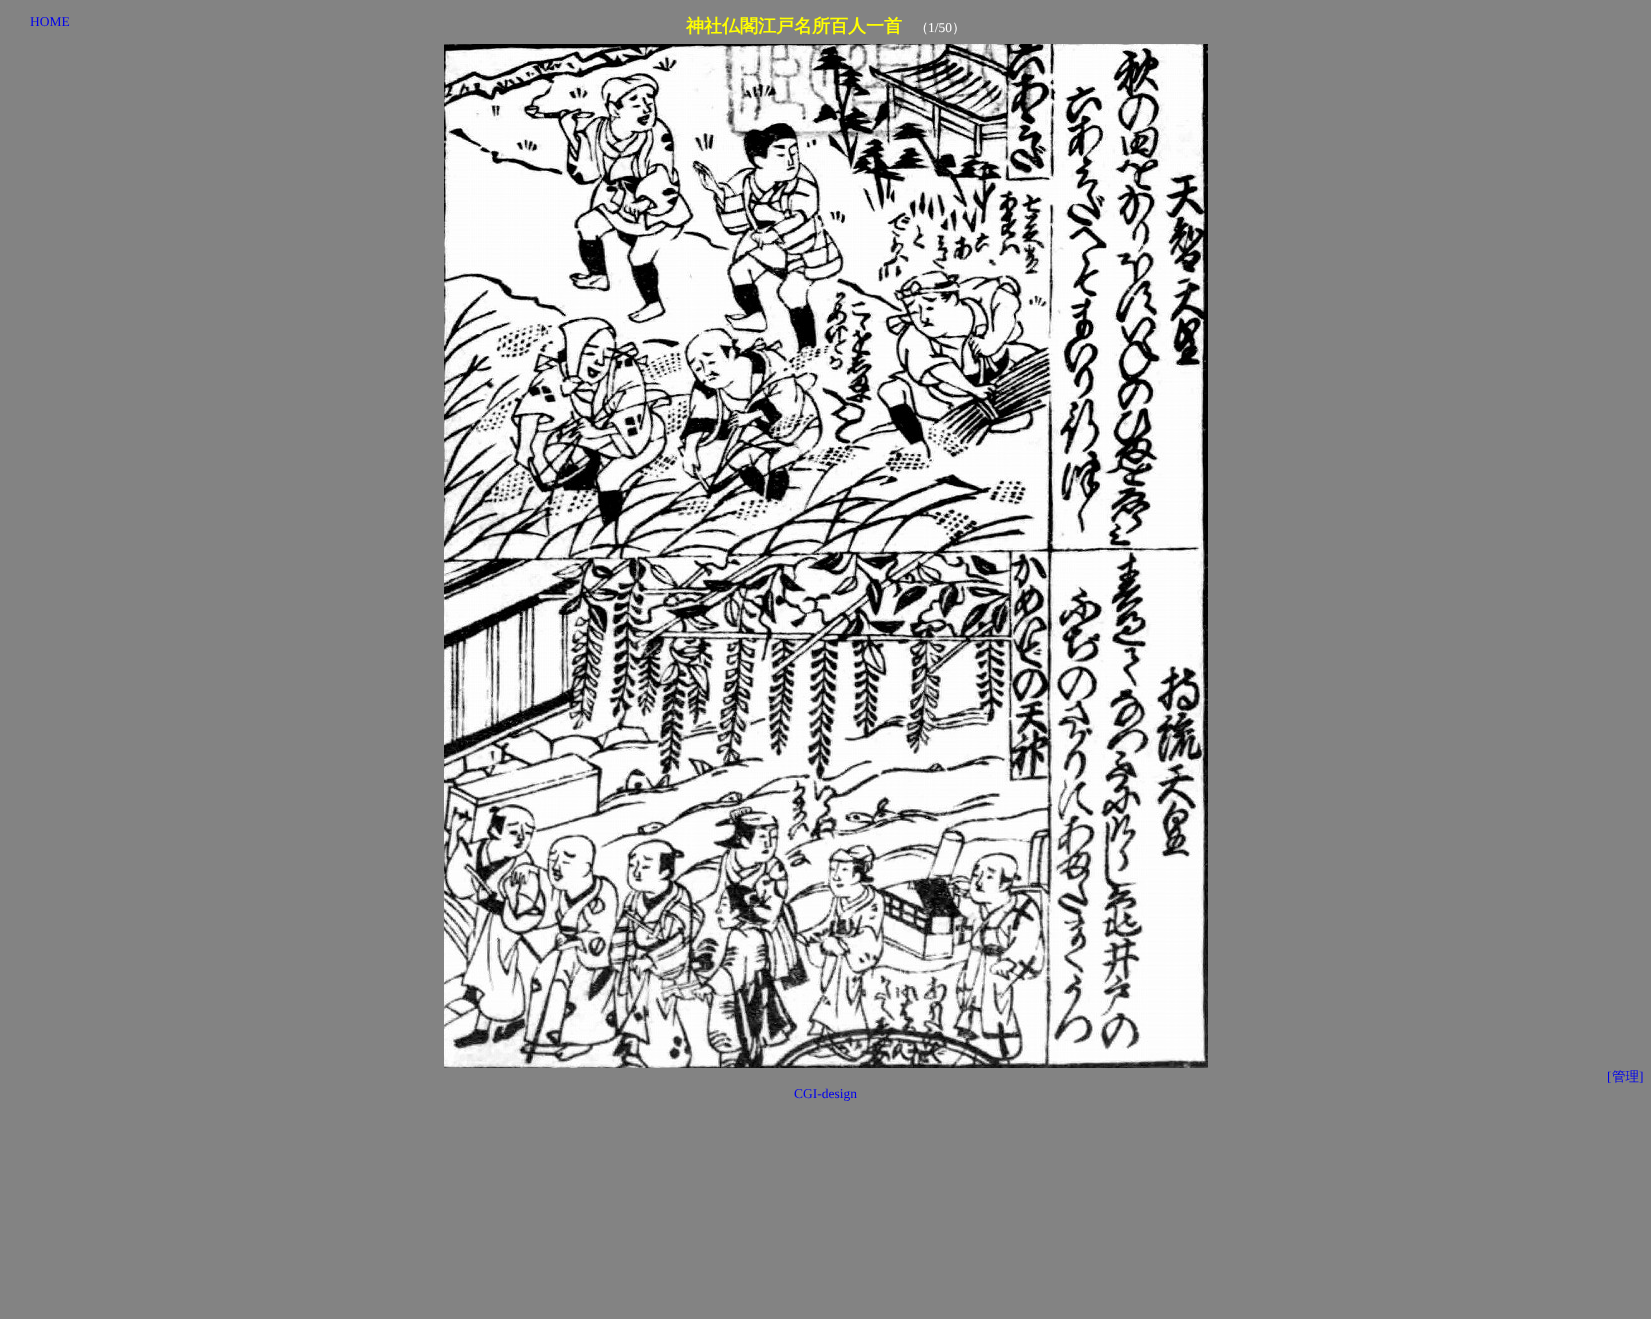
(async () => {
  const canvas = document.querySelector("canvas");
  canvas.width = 1651;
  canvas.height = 1319;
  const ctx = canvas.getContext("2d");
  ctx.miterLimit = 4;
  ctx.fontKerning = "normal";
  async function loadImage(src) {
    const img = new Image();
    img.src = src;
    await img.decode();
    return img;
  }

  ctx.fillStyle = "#838383";
  ctx.fillRect(0, 0, 1651, 1319);
  ctx.drawImage(await loadImage("img/1.png"), 444, 44, 764, 1024);
  ctx.font = "13.5px Liberation Serif";
  ctx.fillStyle = "#0000ee";
  ctx.fillText("HOME", 30, 26);
  ctx.font = "bold 18px WenQuanYi Zen Hei";
  ctx.fillStyle = "#ffff00";
  ctx.fillText("神社仏閣江戸名所百人一首", 686, 32);
  ctx.font = "500 13.5px WenQuanYi Zen Hei";
  ctx.fillStyle = "#ffffff";
  ctx.fillText("（", 915, 32);
  ctx.font = "13.5px Liberation Serif";
  ctx.fillText("1/50", 928, 32);
  ctx.font = "500 13.5px WenQuanYi Zen Hei";
  ctx.fillText("）", 952, 32);
  ctx.font = "13.5px Liberation Serif";
  ctx.fillStyle = "#0000ee";
  ctx.fillText("[", 1607, 1081);
  ctx.font = "500 13.5px WenQuanYi Zen Hei";
  ctx.fillText("管理", 1612, 1081);
  ctx.font = "13.5px Liberation Serif";
  ctx.fillText("]", 1639, 1081);
  ctx.fillText("CGI-design", 794, 1098);
})();
